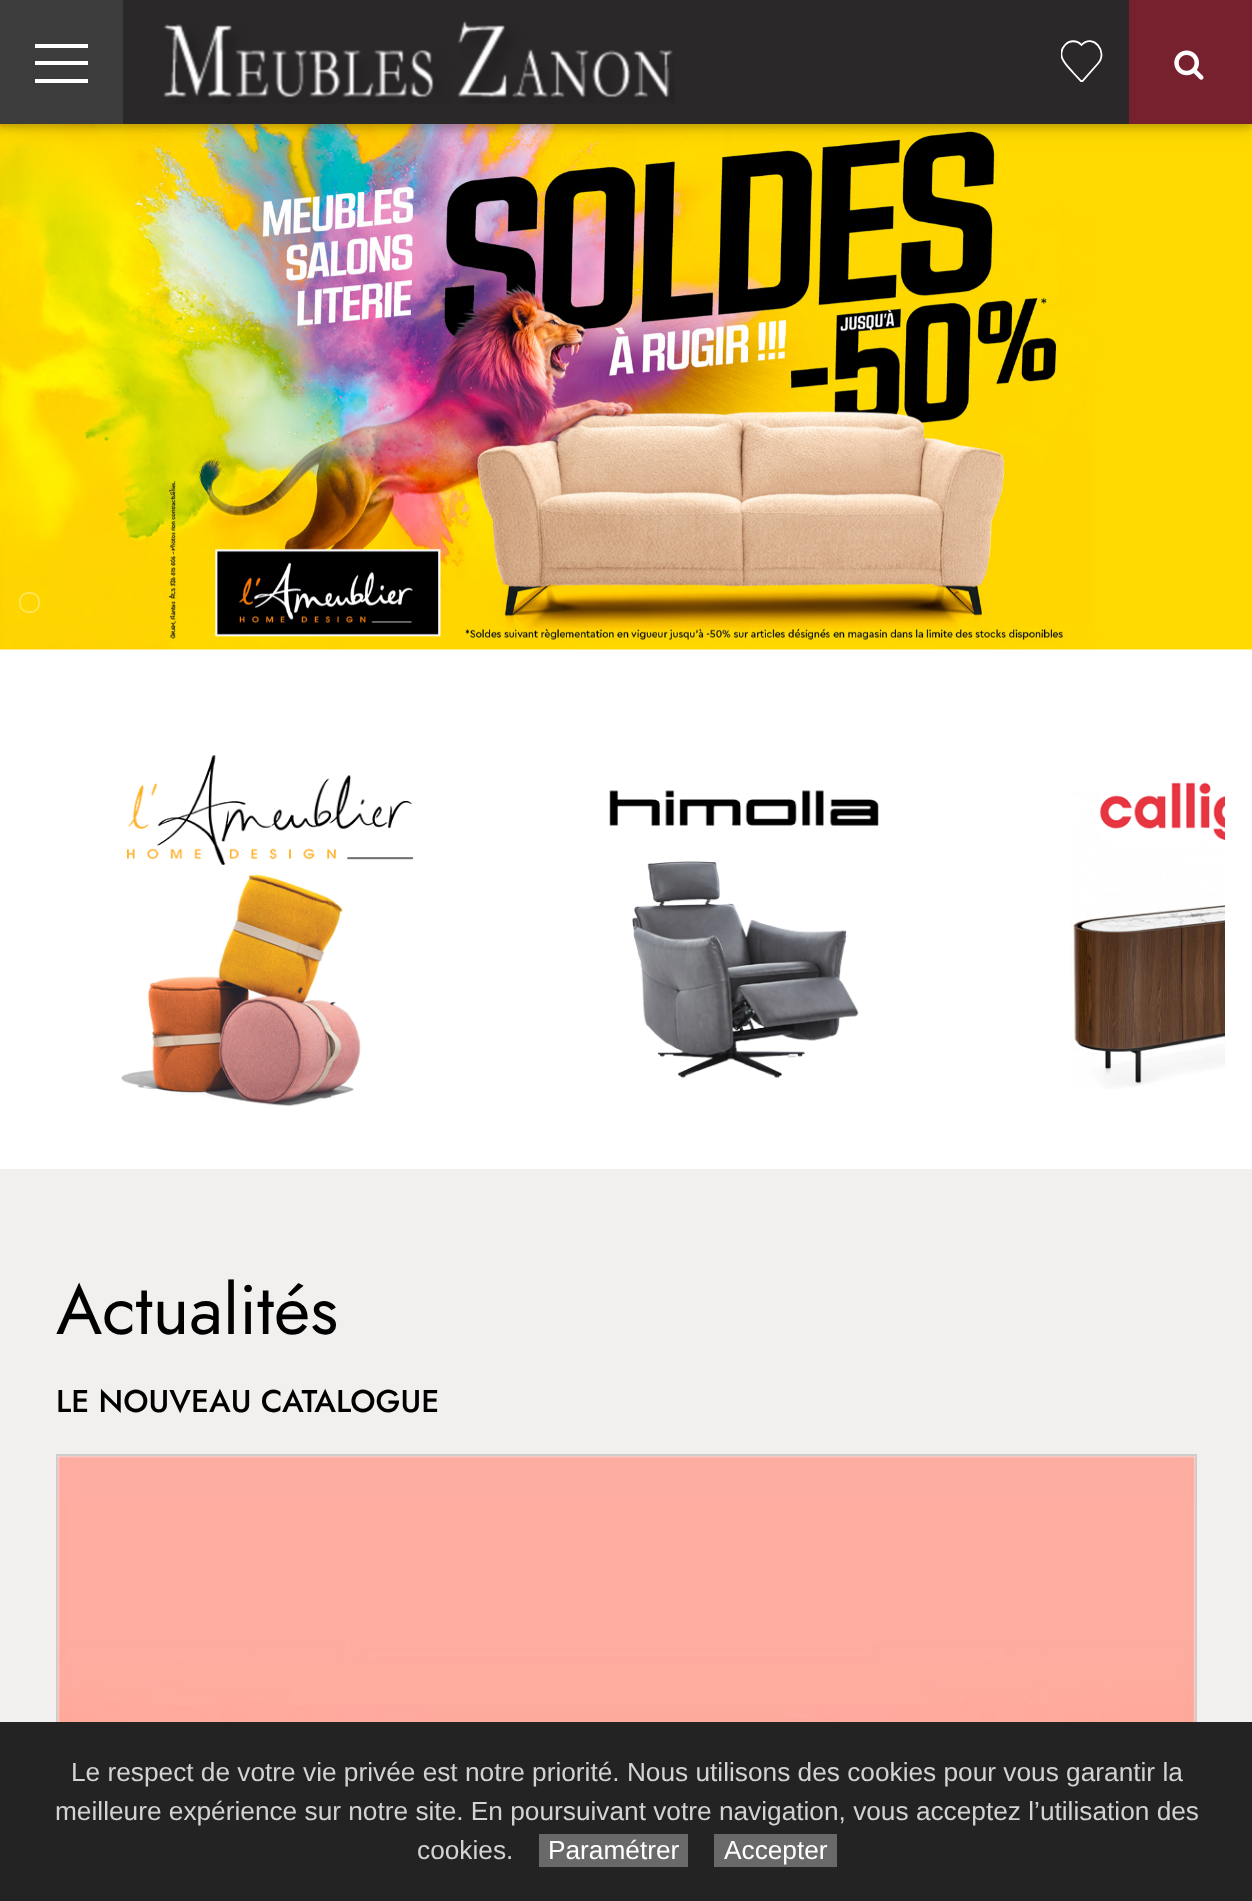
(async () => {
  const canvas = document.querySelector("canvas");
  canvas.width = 1252;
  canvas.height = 1901;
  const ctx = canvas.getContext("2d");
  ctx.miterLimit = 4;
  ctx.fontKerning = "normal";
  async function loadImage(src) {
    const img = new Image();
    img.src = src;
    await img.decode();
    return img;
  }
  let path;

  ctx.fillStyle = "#ffffff";
  ctx.fillRect(0, 0, 1252, 1901);
  ctx.drawImage(await loadImage("img/3.png"), 0, 124, 1252, 526);
  ctx.fillStyle = "rgba(0, 0, 0, 0.12)";
  ctx.filter = "blur(9px)";
  ctx.beginPath();
  ctx.rect(0, 4, 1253, 124);
  ctx.fill();
  ctx.filter = "none";
  ctx.fillStyle = "rgba(0, 0, 0, 0.16)";
  ctx.filter = "blur(3.5px)";
  ctx.beginPath();
  ctx.rect(0, 4, 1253, 124);
  ctx.fill();
  ctx.filter = "none";
  for (const [x, y, w, h, color] of [
    [123, 0, 1006, 124, "#2b282a"],
    [0, 0, 123, 124, "#3c3c3d"],
    [35, 44, 53, 4, "#ffffff"],
    [35, 61, 53, 4, "#ffffff"],
    [35, 79, 53, 4, "#ffffff"],
  ]) {
    ctx.fillStyle = color;
    ctx.fillRect(x, y, w, h);
  }
  ctx.drawImage(await loadImage("img/1.png"), 163, 20, 512, 84);
  ctx.save();
  ctx.beginPath();
  ctx.rect(1061, 40, 42, 42);
  ctx.clip();
  path = new Path2D("M1065 45C1055.5 55.5 1066.5 65 1073 72.5L1081 81H1082.5L1098 63.5C1108.5 52 1093 33 1081.5 45C1077 40 1069.5 40 1065 45ZM1065 45L1065.5 45.5M1065 45L1065.5 45.5");
  ctx.strokeStyle = "#ffffff";
  ctx.lineWidth = 1.8;
  ctx.stroke(path);
  ctx.restore();
  ctx.fillStyle = "#77212e";
  ctx.fillRect(1129, 0, 123, 124);
  ctx.drawImage(await loadImage("img/2.png"), 1174, 50, 30, 30);
  ctx.beginPath();
  ctx.roundRect(20, 593, 19, 19, 8);
  ctx.strokeStyle = "#ffe352";
  ctx.lineWidth = 2;
  ctx.stroke();
  ctx.drawImage(await loadImage("img/4.png"), 121, 755, 293, 352);
  ctx.drawImage(await loadImage("img/5.png"), 609, 790, 270, 288);
  ctx.drawImage(await loadImage("img/6.png"), 1070, 782, 155, 307);
  ctx.fillStyle = "#f2f0ee";
  ctx.fillRect(0, 1169, 1252, 553);
  ctx.strokeStyle = "#cccccc";
  ctx.strokeRect(57, 1455, 1139, 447);
  ctx.drawImage(await loadImage("img/7.png"), 57, 1456, 1139, 266);
  for (const [x, y, w, h, color] of [
    [0, 1722, 1252, 179, "#232323"],
    [539, 1834, 149, 33, "#696969"],
    [714, 1834, 123, 33, "#696969"],
  ]) {
    ctx.fillStyle = color;
    ctx.fillRect(x, y, w, h);
  }
  ctx.font = "70px Jost";
  ctx.fillStyle = "#000000";
  ctx.fillText("Actualités", 56, 1334);
  ctx.font = "500 31.5px Jost";
  ctx.fillText("LE NOUVEAU CATALOGUE", 56, 1412);
  ctx.font = "26.25px Liberation Sans";
  ctx.fillStyle = "#d3d3d3";
  for (const [text, x, y] of [
    ["Le respect de votre vie privée est notre priorité. Nous utilisons des cookies pour vous garantir la", 71, 1781],
    ["meilleure expérience sur notre site. En poursuivant votre navigation, vous acceptez l’utilisation des", 55, 1820],
    ["cookies.", 417, 1859],
  ]) {
    ctx.fillText(text, x, y);
  }
  ctx.fillStyle = "#ffffff";
  ctx.fillText("Paramétrer", 548, 1859);
  ctx.fillText("Accepter", 724, 1859);
})();
